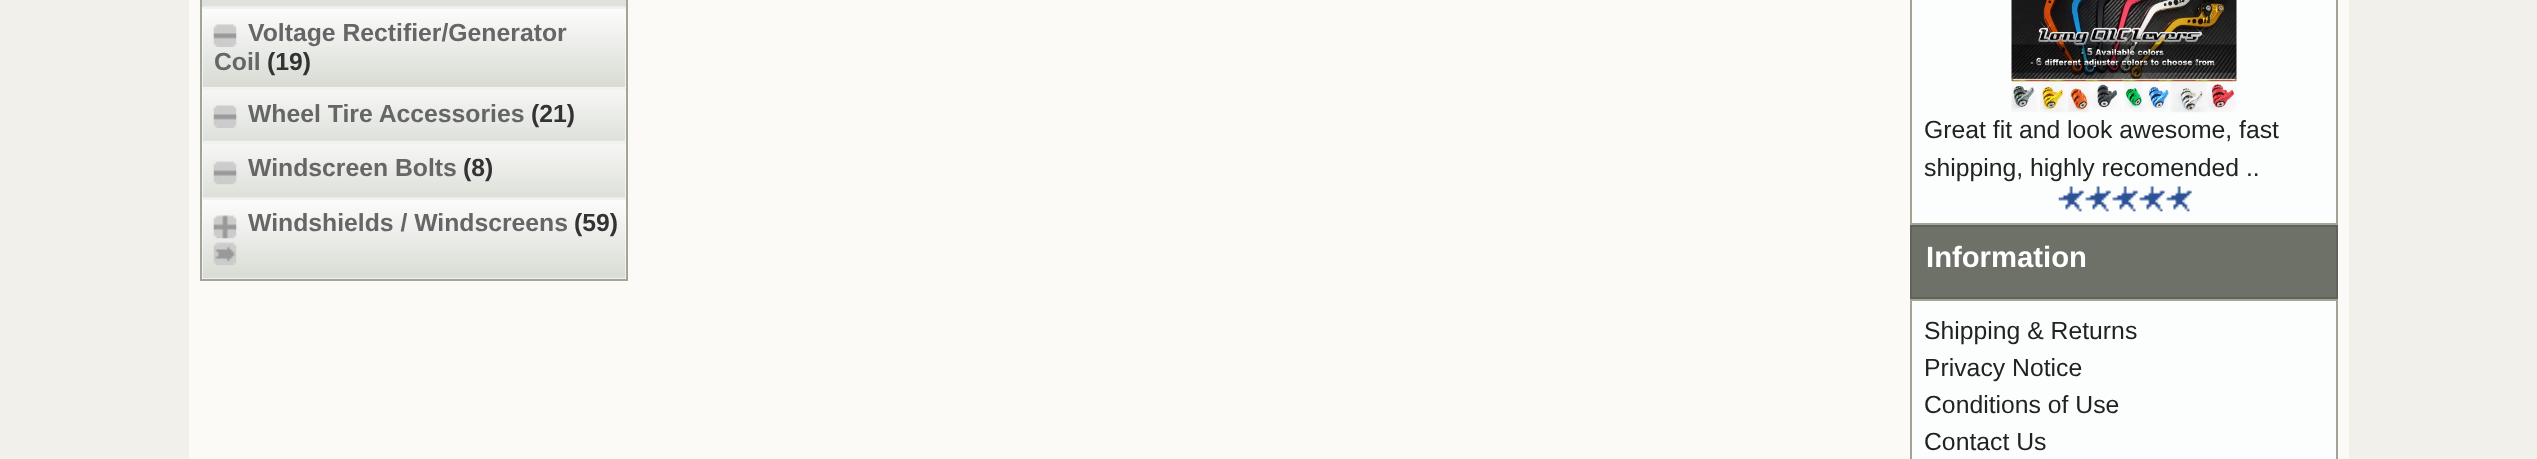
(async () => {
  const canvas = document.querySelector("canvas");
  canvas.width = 2537;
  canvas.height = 459;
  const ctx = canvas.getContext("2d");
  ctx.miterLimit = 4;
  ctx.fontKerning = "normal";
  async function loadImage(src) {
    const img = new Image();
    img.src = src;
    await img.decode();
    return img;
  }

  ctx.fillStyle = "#f1f0eb";
  ctx.fillRect(0, 0, 2537, 459);
  ctx.fillStyle = "#fbfaf6";
  ctx.fillRect(189, 0, 2160, 459);
  ctx.strokeStyle = "#a0a596";
  ctx.lineWidth = 2;
  ctx.strokeRect(201, -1, 426, 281);
  ctx.fillStyle = "#dfe1db";
  ctx.fillRect(202, 0, 424, 7);
  ctx.drawImage(await loadImage("img/1.png"), 202, 6, 424, 82);
  ctx.fillStyle = "#f1f1f1";
  ctx.fillRect(203, 7, 423, 2);
  ctx.drawImage(await loadImage("img/2.png"), 213, 24, 24, 23);
  ctx.drawImage(await loadImage("img/3.png"), 202, 89, 424, 53);
  ctx.fillRect(203, 88, 423, 2);
  ctx.drawImage(await loadImage("img/4.png"), 213, 105, 24, 23);
  ctx.drawImage(await loadImage("img/5.png"), 202, 141, 424, 57);
  ctx.fillRect(203, 142, 423, 2);
  ctx.drawImage(await loadImage("img/6.png"), 213, 161, 24, 24);
  ctx.drawImage(await loadImage("img/7.png"), 202, 197, 424, 82);
  ctx.fillRect(203, 198, 423, 2);
  ctx.drawImage(await loadImage("img/8.png"), 213, 215, 24, 24);
  ctx.drawImage(await loadImage("img/9.png"), 213, 242, 24, 24);
  ctx.fillStyle = "#fcfdfd";
  ctx.beginPath();
  ctx.rect(1911, -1, 426, 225);
  ctx.fill();
  ctx.stroke();
  ctx.drawImage(await loadImage("img/10.png"), 2011, 0, 226, 113);
  ctx.drawImage(await loadImage("img/11.png"), 2058, 186, 134, 26);
  ctx.fillStyle = "#6e7167";
  ctx.beginPath();
  ctx.rect(1911, 226, 426, 72);
  ctx.fill();
  ctx.strokeStyle = "#606458";
  ctx.stroke();
  ctx.fillStyle = "#fcfdfd";
  ctx.beginPath();
  ctx.rect(1911, 300, 426, 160);
  ctx.fill();
  ctx.strokeStyle = "#a0a596";
  ctx.stroke();
  ctx.font = "bold 24.75px Liberation Sans";
  ctx.fillStyle = "#666666";
  ctx.fillText("Voltage Rectifier/Generator", 248, 41);
  ctx.fillText("Coil", 214, 70);
  ctx.fillStyle = "#333333";
  ctx.fillText("(19)", 267, 70);
  ctx.fillStyle = "#666666";
  ctx.fillText("Wheel Tire Accessories", 248, 122);
  ctx.fillStyle = "#333333";
  ctx.fillText("(21)", 531, 122);
  ctx.fillStyle = "#666666";
  ctx.fillText("Windscreen Bolts", 248, 176);
  ctx.fillStyle = "#333333";
  ctx.fillText("(8)", 463, 176);
  ctx.fillStyle = "#666666";
  ctx.fillText("Windshields / Windscreens", 248, 231);
  ctx.fillStyle = "#333333";
  ctx.fillText("(59)", 574, 231);
  ctx.font = "24.75px Liberation Sans";
  ctx.fillStyle = "#222222";
  ctx.fillText("Great fit and look awesome, fast", 1924, 138);
  ctx.fillText("shipping, highly recomended ..", 1924, 176);
  ctx.font = "bold 29.25px Liberation Sans";
  ctx.fillStyle = "#ffffff";
  ctx.fillText("Information", 1926, 267);
  ctx.font = "24.75px Liberation Sans";
  ctx.fillStyle = "#222222";
  for (const [text, x, y] of [
    ["Shipping & Returns", 1924, 339],
    ["Privacy Notice", 1924, 376],
    ["Conditions of Use", 1924, 413],
    ["Contact Us", 1924, 450],
  ]) {
    ctx.fillText(text, x, y);
  }
})();
